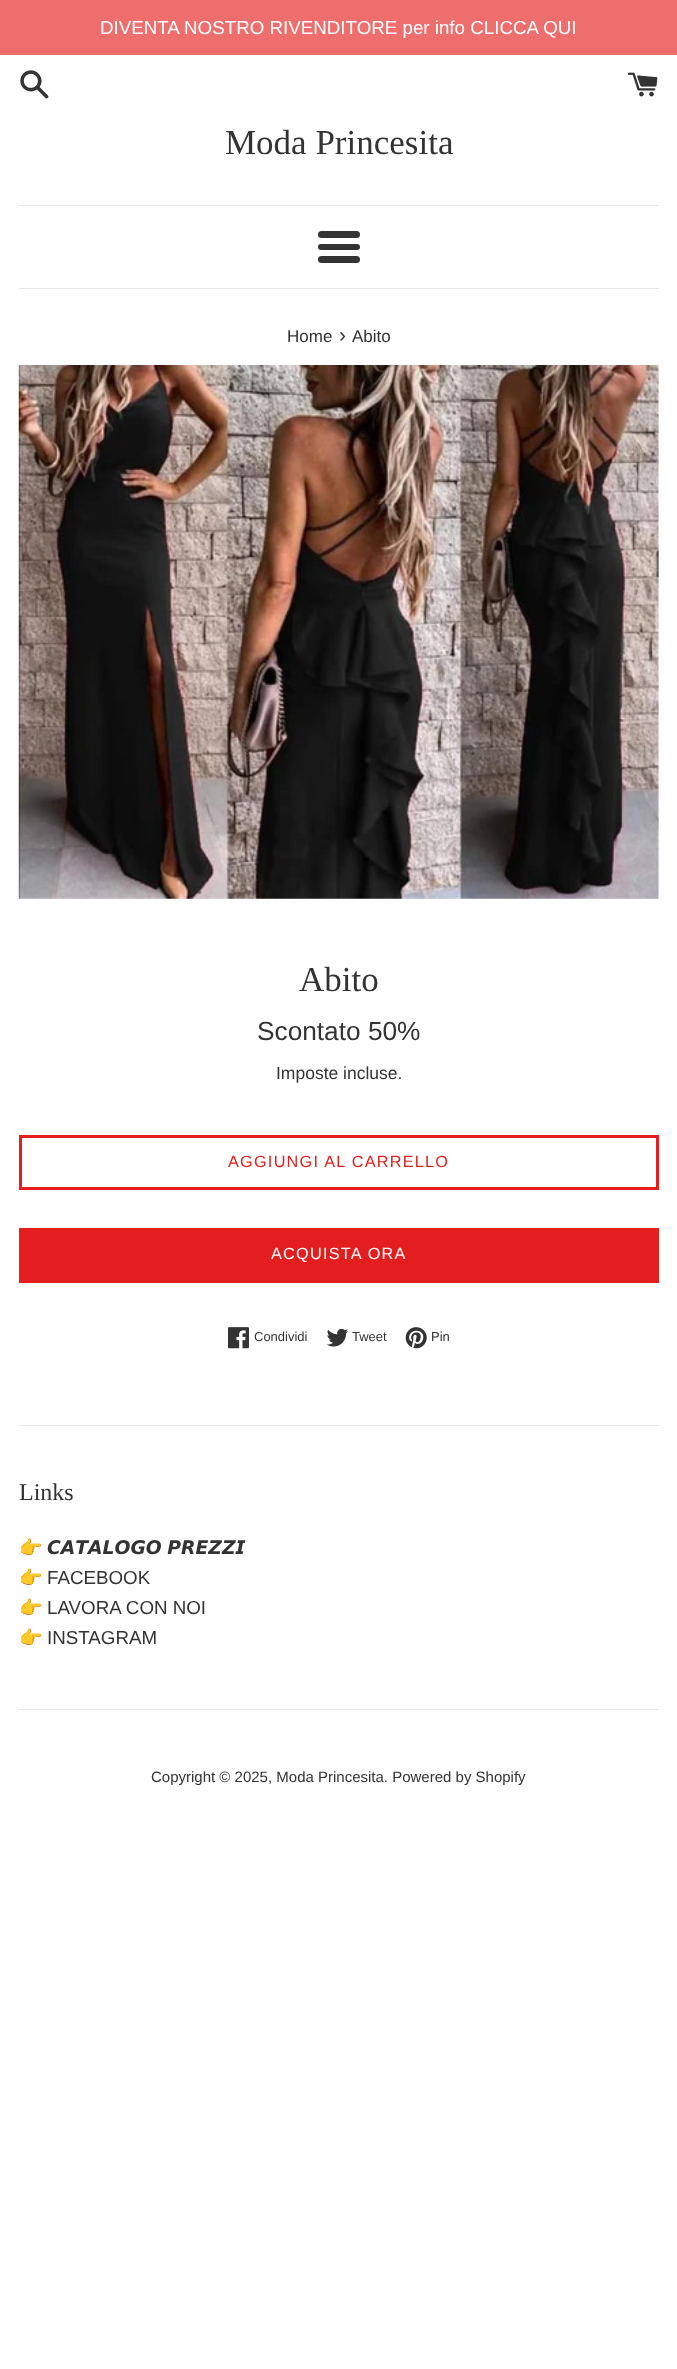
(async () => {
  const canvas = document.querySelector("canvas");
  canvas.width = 677;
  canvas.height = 2369;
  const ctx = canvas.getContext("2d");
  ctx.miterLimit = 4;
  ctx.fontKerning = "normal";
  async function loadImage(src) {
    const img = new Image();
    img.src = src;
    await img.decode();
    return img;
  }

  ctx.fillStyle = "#ffffff";
  ctx.fillRect(0, 0, 677, 2369);
  ctx.fillStyle = "#ee6e6e";
  ctx.fillRect(0, 0, 677, 55);
  ctx.drawImage(await loadImage("img/1.png"), 20, 70, 29, 29);
  ctx.drawImage(await loadImage("img/2.png"), 628, 72, 30, 25);
  ctx.fillStyle = "#e8e8e8";
  ctx.fillRect(19, 205, 640, 1);
  ctx.fillStyle = "#333333";
  ctx.beginPath();
  ctx.roundRect(318, 231, 42, 7, 3.5);
  ctx.fill();
  ctx.beginPath();
  ctx.roundRect(318, 244, 42, 6, 3);
  ctx.fill();
  ctx.beginPath();
  ctx.roundRect(318, 256, 42, 7, 3.5);
  ctx.fill();
  ctx.fillStyle = "#e8e8e8";
  ctx.fillRect(19, 288, 640, 1);
  ctx.drawImage(await loadImage("img/3.png"), 18, 365, 641, 534);
  ctx.strokeStyle = "#e41e1e";
  ctx.lineWidth = 3;
  ctx.strokeRect(20.5, 1136.5, 637, 52);
  ctx.fillStyle = "#e41e1e";
  ctx.fillRect(19, 1228, 640, 55);
  ctx.drawImage(await loadImage("img/4.png"), 228, 1327, 21, 22);
  ctx.drawImage(await loadImage("img/5.png"), 326, 1328, 23, 19);
  ctx.drawImage(await loadImage("img/6.png"), 405, 1327, 22, 22);
  ctx.fillStyle = "#e8e8e8";
  ctx.fillRect(19, 1425, 640, 1);
  ctx.fillRect(19, 1709, 640, 1);
  ctx.font = "18.75px Liberation Sans";
  ctx.fillStyle = "#ffffff";
  ctx.fillText("DIVENTA NOSTRO RIVENDITORE per info CLICCA QUI", 100, 34);
  ctx.font = "35px Liberation Serif";
  ctx.fillStyle = "#333333";
  ctx.fillText("Moda Princesita", 225, 154);
  ctx.font = "17px Liberation Sans";
  ctx.fillText("Home", 287, 342);
  ctx.font = "21px Liberation Sans";
  ctx.fillText("›", 339, 342);
  ctx.font = "17px Liberation Sans";
  ctx.fillText("Abito", 352, 342);
  ctx.font = "35px Liberation Serif";
  ctx.fillText("Abito", 299, 991);
  ctx.font = "26.25px Liberation Sans";
  ctx.fillText("Scontato 50%", 257, 1040);
  ctx.font = "17.5px Liberation Sans";
  ctx.fillText("Imposte incluse.", 276, 1079);
  ctx.letterSpacing = "1.25px";
  ctx.font = "16.25px Liberation Sans";
  ctx.fillStyle = "#e41e1e";
  ctx.fillText("AGGIUNGI AL CARRELLO", 228, 1167);
  ctx.fillStyle = "#ffffff";
  ctx.fillText("ACQUISTA ORA", 271, 1259);
  ctx.letterSpacing = "0px";
  ctx.font = "13px Liberation Sans";
  ctx.fillStyle = "#333333";
  for (const [text, x, y] of [
    ["Condividi", 254, 1341],
    ["Tweet", 352, 1341],
    ["Pin", 431, 1341],
  ]) {
    ctx.fillText(text, x, y);
  }
  ctx.font = "24px Liberation Serif";
  ctx.fillText("Links", 19, 1500);
  ctx.font = "18.75px Noto Color Emoji";
  ctx.fillText("👉", 19, 1554);
  ctx.wordSpacing = "-1px";
  ctx.font = "italic bold 18.75px DejaVu Sans";
  ctx.fillText("𝘾𝘼𝙏𝘼𝙇𝙊𝙂𝙊 𝙋𝙍𝙀𝙕𝙕𝙄", 47, 1554);
  ctx.wordSpacing = "0px";
  ctx.font = "18.75px Noto Color Emoji";
  ctx.fillText("👉", 19, 1584);
  ctx.font = "18.75px Liberation Sans";
  ctx.fillText("FACEBOOK", 47, 1584);
  ctx.font = "18.75px Noto Color Emoji";
  ctx.fillText("👉", 19, 1614);
  ctx.font = "18.75px Liberation Sans";
  ctx.fillText("LAVORA CON NOI", 47, 1614);
  ctx.font = "18.75px Noto Color Emoji";
  ctx.fillText("👉", 19, 1644);
  ctx.font = "18.75px Liberation Sans";
  ctx.fillText("INSTAGRAM", 47, 1644);
  ctx.font = "15px Liberation Sans";
  ctx.fillText("Copyright © 2025, Moda Princesita. Powered by Shopify", 151, 1782);
})();
